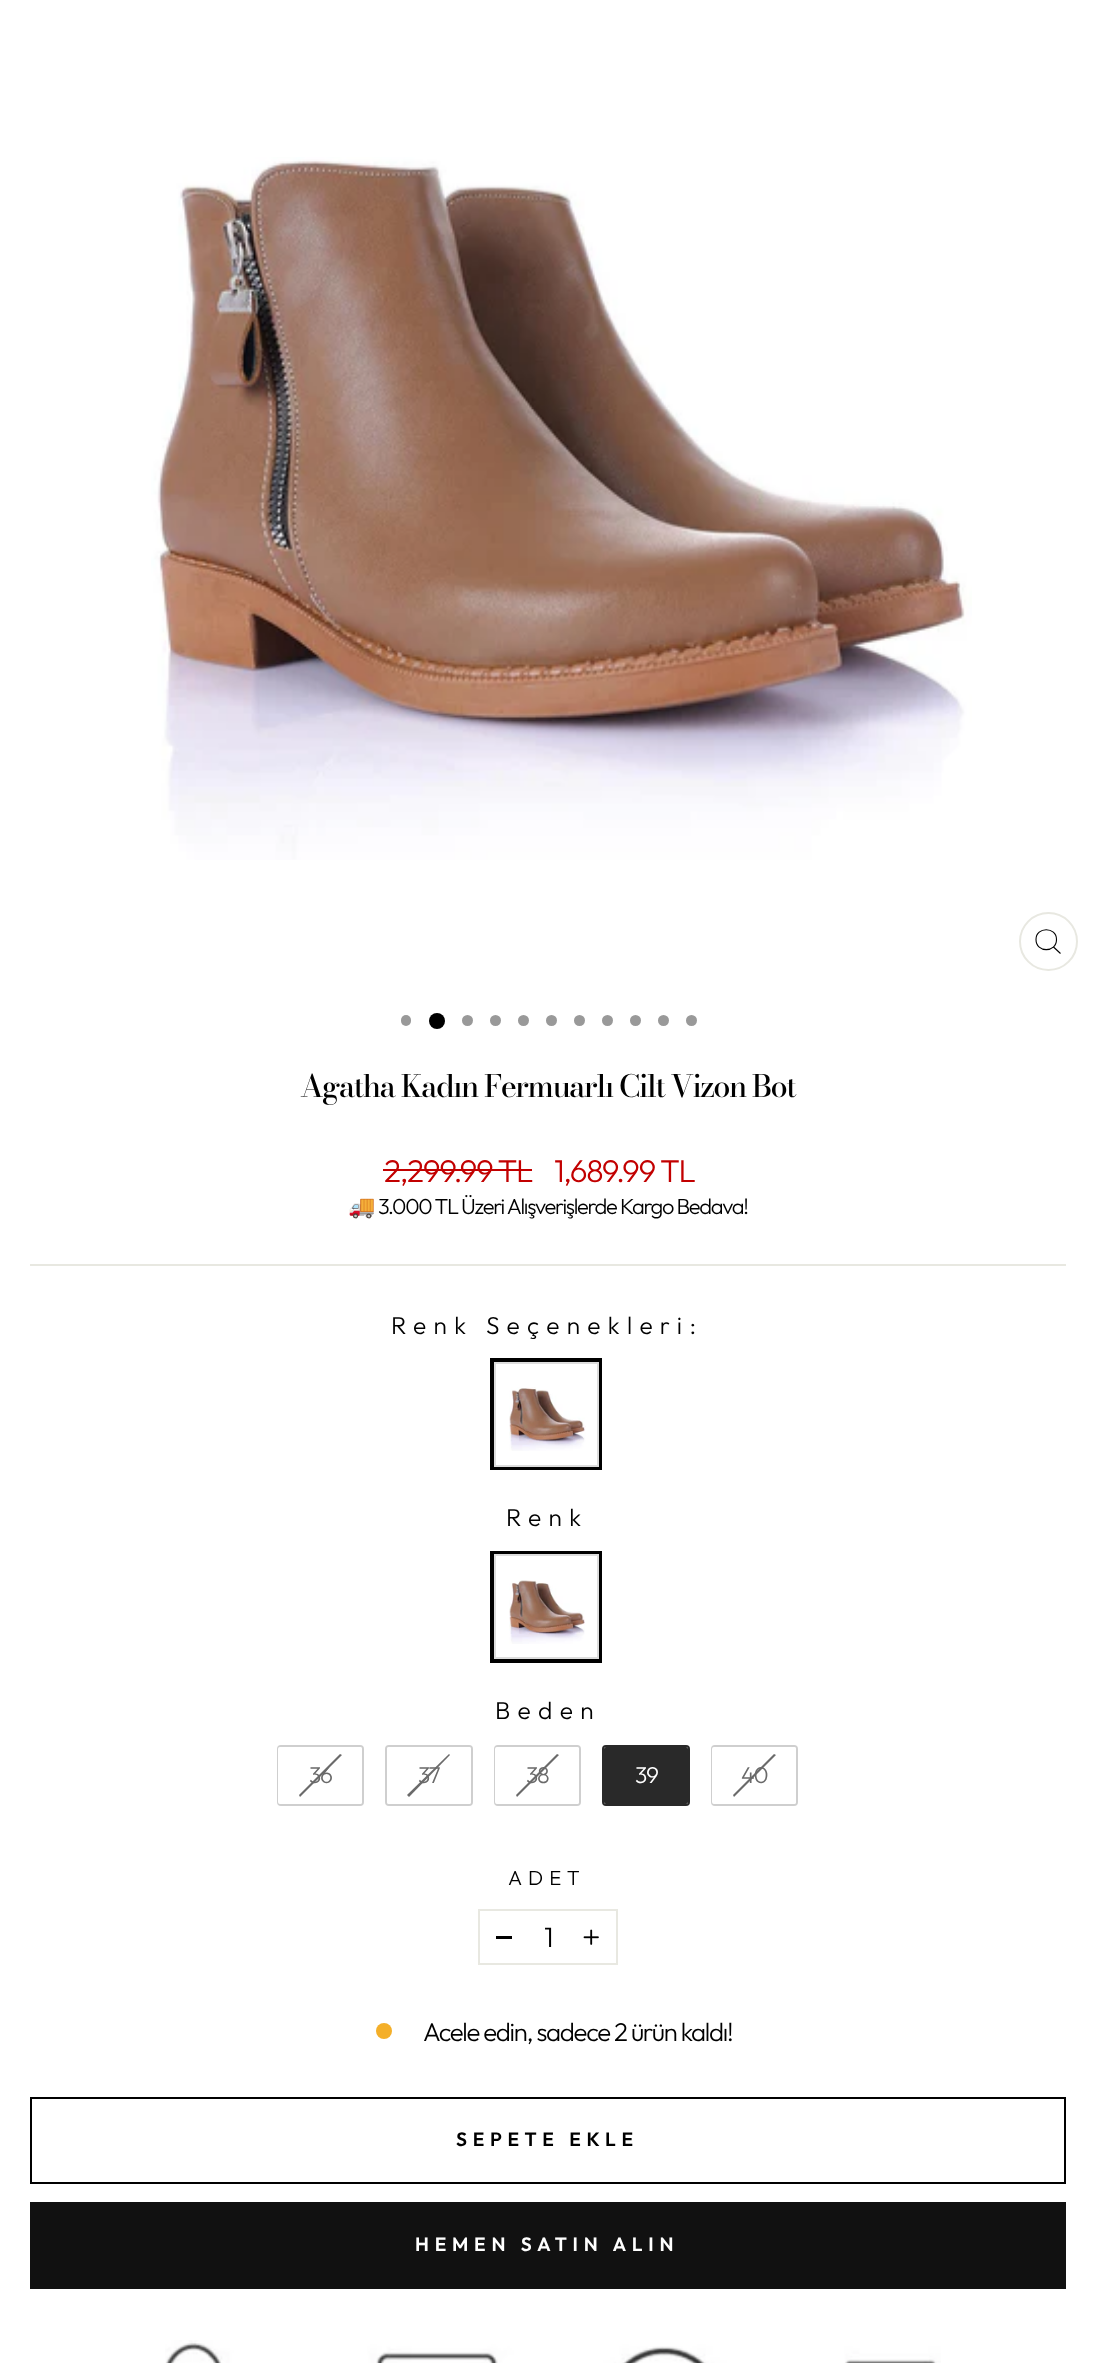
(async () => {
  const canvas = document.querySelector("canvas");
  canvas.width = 1094;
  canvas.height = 2363;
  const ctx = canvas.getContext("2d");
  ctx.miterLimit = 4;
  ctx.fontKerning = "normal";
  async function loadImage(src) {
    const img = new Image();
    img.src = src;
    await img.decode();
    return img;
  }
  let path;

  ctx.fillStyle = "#ffffff";
  ctx.fillRect(0, 0, 1094, 2363);
  ctx.drawImage(await loadImage("img/1.png"), 151, 157, 821, 703);
  ctx.beginPath();
  ctx.arc(1048.5, 941.5, 28.5, 0, Math.PI * 2);
  ctx.strokeStyle = "#e8e8e1";
  ctx.lineWidth = 2;
  ctx.stroke();
  path = new Path2D("M1056.5 939.5C1056.5 953 1036 953 1036 939.5C1036 926.5 1056.5 926.5 1056.5 939.5ZM1060.5 953.5L1053.5 947");
  ctx.strokeStyle = "#000000";
  ctx.lineWidth = 1.1;
  ctx.stroke(path);
  ctx.fillStyle = "#999999";
  ctx.beginPath();
  ctx.roundRect(401, 1015, 10, 11, 5);
  ctx.fill();
  ctx.fillStyle = "#000000";
  ctx.beginPath();
  ctx.arc(437, 1021, 8, 0, Math.PI * 2);
  ctx.fill();
  ctx.fillStyle = "#999999";
  ctx.beginPath();
  ctx.arc(467.5, 1020.5, 5.5, 0, Math.PI * 2);
  ctx.fill();
  ctx.beginPath();
  ctx.arc(495.5, 1020.5, 5.5, 0, Math.PI * 2);
  ctx.fill();
  ctx.beginPath();
  ctx.arc(523.5, 1020.5, 5.5, 0, Math.PI * 2);
  ctx.fill();
  ctx.beginPath();
  ctx.arc(551.5, 1020.5, 5.5, 0, Math.PI * 2);
  ctx.fill();
  ctx.beginPath();
  ctx.arc(579.5, 1020.5, 5.5, 0, Math.PI * 2);
  ctx.fill();
  ctx.beginPath();
  ctx.arc(607.5, 1020.5, 5.5, 0, Math.PI * 2);
  ctx.fill();
  ctx.beginPath();
  ctx.arc(635.5, 1020.5, 5.5, 0, Math.PI * 2);
  ctx.fill();
  ctx.beginPath();
  ctx.arc(663.5, 1020.5, 5.5, 0, Math.PI * 2);
  ctx.fill();
  ctx.beginPath();
  ctx.arc(691.5, 1020.5, 5.5, 0, Math.PI * 2);
  ctx.fill();
  ctx.fillStyle = "#c20000";
  ctx.fillRect(383, 1169, 149, 2);
  ctx.fillStyle = "#e8e8e1";
  ctx.fillRect(30, 1264, 1036, 2);
  ctx.lineWidth = 4;
  ctx.strokeRect(492, 1360, 108, 108);
  ctx.drawImage(await loadImage("img/2.png"), 509, 1387, 77, 64);
  ctx.strokeStyle = "#dddddd";
  ctx.lineWidth = 2;
  ctx.strokeRect(495, 1363, 103, 103);
  ctx.strokeStyle = "#000000";
  ctx.lineWidth = 4;
  ctx.strokeRect(492, 1553, 108, 108);
  ctx.drawImage(await loadImage("img/3.png"), 509, 1580, 76, 64);
  ctx.strokeStyle = "#dddddd";
  ctx.lineWidth = 2;
  ctx.strokeRect(495, 1555, 103, 103);
  ctx.beginPath();
  ctx.roundRect(278, 1746, 85, 59, 3);
  ctx.strokeStyle = "#cfcfcf";
  ctx.stroke();
  ctx.fillStyle = "#ffffff";
  ctx.beginPath();
  ctx.roundRect(278, 1747, 84, 57, 2);
  ctx.fill();
  ctx.fillStyle = "#6a6a6a";
  path = new Path2D("M340 1754L342 1755L300 1797L299 1795Z");
  ctx.fill(path);
  ctx.beginPath();
  ctx.roundRect(386, 1746, 86, 59, 3);
  ctx.stroke();
  ctx.fillStyle = "#ffffff";
  ctx.beginPath();
  ctx.roundRect(387, 1747, 84, 57, 2);
  ctx.fill();
  ctx.fillStyle = "#6a6a6a";
  path = new Path2D("M449 1754L450 1755L409 1797L407 1795Z");
  ctx.fill(path);
  ctx.beginPath();
  ctx.roundRect(495, 1746, 85, 59, 3);
  ctx.stroke();
  ctx.fillStyle = "#ffffff";
  ctx.beginPath();
  ctx.roundRect(495, 1747, 84, 57, 2);
  ctx.fill();
  ctx.fillStyle = "#6a6a6a";
  path = new Path2D("M557 1754L559 1755L517 1797L516 1795Z");
  ctx.fill(path);
  ctx.beginPath();
  ctx.roundRect(603, 1746, 86, 59, 3);
  ctx.strokeStyle = "#292929";
  ctx.stroke();
  ctx.fillStyle = "#292929";
  ctx.beginPath();
  ctx.roundRect(604, 1747, 84, 57, 2);
  ctx.fill();
  ctx.beginPath();
  ctx.roundRect(712, 1746, 85, 59, 3);
  ctx.strokeStyle = "#cfcfcf";
  ctx.stroke();
  ctx.fillStyle = "#ffffff";
  ctx.beginPath();
  ctx.roundRect(712, 1747, 84, 57, 2);
  ctx.fill();
  ctx.fillStyle = "#6a6a6a";
  path = new Path2D("M774 1754L776 1755L734 1797L733 1795Z");
  ctx.fill(path);
  ctx.strokeStyle = "#e8e8e1";
  ctx.strokeRect(479, 1910, 138, 54);
  ctx.fillStyle = "#000000";
  ctx.fillRect(496, 1936, 16, 3);
  ctx.drawImage(await loadImage("img/4.png"), 583, 1929, 16, 16);
  ctx.fillStyle = "#f4af29";
  ctx.beginPath();
  ctx.arc(384, 2031, 8, 0, Math.PI * 2);
  ctx.fill();
  ctx.strokeStyle = "#000000";
  ctx.strokeRect(31, 2098, 1034, 85);
  ctx.fillStyle = "#111111";
  ctx.fillRect(30, 2202, 1036, 87);
  ctx.drawImage(await loadImage("img/5.png"), 165, 2340, 776, 23);
  ctx.letterSpacing = "-1.55px";
  ctx.font = "500 30.7px Bodoni Moda";
  ctx.fillStyle = "#000000";
  ctx.fillText("Agatha Kadın Fermuarlı Cilt Vizon Bot", 300, 1097);
  ctx.letterSpacing = "-1.3px";
  ctx.font = "300 31.5px Outfit";
  ctx.fillStyle = "#c20000";
  ctx.fillText("2,299.99 TL", 384, 1182);
  ctx.fillText("1,689.99 TL", 554, 1182);
  ctx.font = "21.9px Noto Color Emoji";
  ctx.fillStyle = "#000000";
  ctx.fillText("🚚", 348, 1214);
  ctx.font = "300 21.9px Outfit";
  ctx.fillText("3.000 TL Üzeri Alışverişlerde Kargo Bedava!", 378, 1214);
  ctx.letterSpacing = "7.3px";
  ctx.font = "300 24.5px Outfit";
  for (const [text, x, y] of [
    ["Renk Seçenekleri:", 391, 1334],
    ["Renk", 506, 1526],
    ["Beden", 495, 1719],
  ]) {
    ctx.fillText(text, x, y);
  }
  ctx.letterSpacing = "-1.3px";
  ctx.font = "300 23px Outfit";
  ctx.fillStyle = "#6a6a6a";
  for (const [text, x, y] of [
    ["36", 309, 1783],
    ["37", 418, 1783],
    ["38", 526, 1783],
  ]) {
    ctx.fillText(text, x, y);
  }
  ctx.fillStyle = "#ffffff";
  ctx.fillText("39", 635, 1783);
  ctx.fillStyle = "#6a6a6a";
  ctx.fillText("40", 741, 1783);
  ctx.letterSpacing = "6px";
  ctx.font = "300 20.5px Outfit";
  ctx.fillStyle = "#000000";
  ctx.fillText("ADET", 508, 1885);
  ctx.letterSpacing = "-1px";
  ctx.font = "300 28px Outfit";
  ctx.fillText("1", 544, 1947);
  ctx.letterSpacing = "-1.3px";
  ctx.font = "300 25.75px Outfit";
  ctx.fillText("Acele edin, sadece 2 ürün kaldı!", 423, 2041);
  ctx.letterSpacing = "5.75px";
  ctx.font = "600 19.25px Outfit";
  ctx.fillText("SEPETE EKLE", 456, 2146);
  ctx.fillStyle = "#ffffff";
  ctx.fillText("HEMEN SATIN ALIN", 415, 2251);
})();
